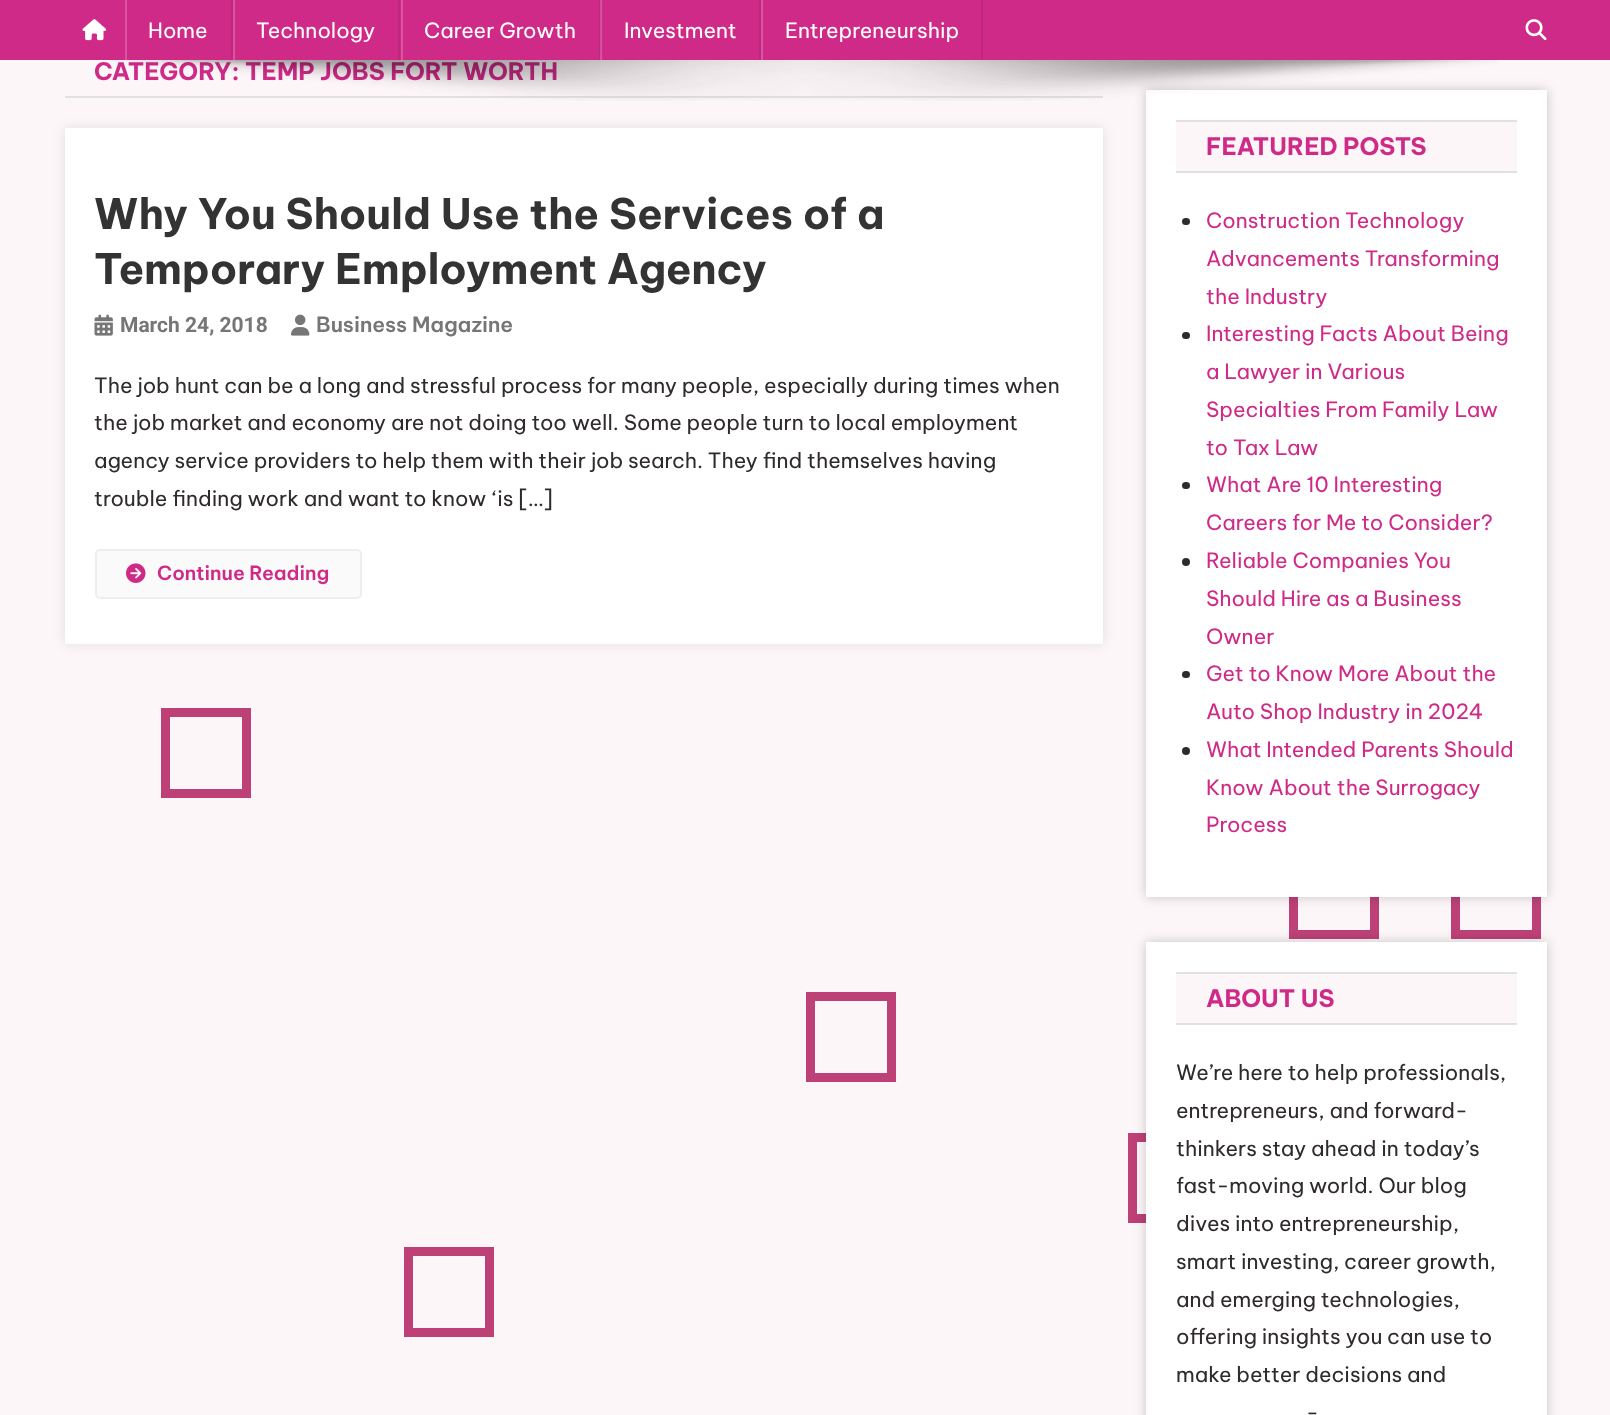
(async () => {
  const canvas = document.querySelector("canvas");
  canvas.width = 1610;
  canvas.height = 1415;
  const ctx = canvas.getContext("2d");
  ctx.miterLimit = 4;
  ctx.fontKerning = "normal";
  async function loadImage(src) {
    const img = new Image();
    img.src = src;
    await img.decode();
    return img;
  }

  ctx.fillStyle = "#fdf6f9";
  ctx.fillRect(0, 0, 1610, 1415);
  ctx.fillStyle = "#cf2a88";
  ctx.fillRect(0, 0, 1610, 60);
  ctx.fillStyle = "#d955a0";
  ctx.fillRect(601, 0, 1, 60);
  ctx.drawImage(await loadImage("img/1.png"), 82, 19, 25, 22);
  for (const [x, y, w, h, color] of [
    [231, 0, 2, 60, "#be277d"],
    [125, 0, 2, 60, "#d955a0"],
    [398, 0, 2, 60, "#be277d"],
    [233, 0, 2, 60, "#d955a0"],
    [599, 0, 1, 60, "#be277d"],
    [600, 0, 1, 60, "#cb5297"],
    [401, 0, 2, 60, "#d955a0"],
    [759, 0, 2, 60, "#be277d"],
    [981, 0, 2, 60, "#be277d"],
    [761, 0, 2, 60, "#d955a0"],
  ]) {
    ctx.fillStyle = color;
    ctx.fillRect(x, y, w, h);
  }
  ctx.drawImage(await loadImage("img/2.png"), 1525, 19, 22, 22);
  ctx.fillStyle = "#e1e1e1";
  ctx.fillRect(65, 96, 1038, 2);
  ctx.fillStyle = "rgba(0, 0, 0, 0.1)";
  ctx.filter = "blur(6px)";
  ctx.beginPath();
  ctx.rect(65, 128, 1038, 516);
  ctx.fill();
  ctx.filter = "none";
  ctx.fillStyle = "#ffffff";
  ctx.fillRect(65, 128, 1038, 516);
  ctx.drawImage(await loadImage("img/4.png"), 94, 314, 19, 22);
  ctx.drawImage(await loadImage("img/5.png"), 291, 314, 19, 22);
  ctx.fillStyle = "#fafafa";
  ctx.beginPath();
  ctx.roundRect(96, 550, 265, 48, 4);
  ctx.fill();
  ctx.strokeStyle = "#eeeeee";
  ctx.lineWidth = 2;
  ctx.stroke();
  ctx.drawImage(await loadImage("img/6.png"), 126, 563, 20, 20);
  ctx.strokeStyle = "#bd4177";
  ctx.lineWidth = 9;
  ctx.strokeRect(1293.5, 853.5, 81, 81);
  ctx.strokeRect(1455.5, 853.5, 81, 81);
  ctx.fillStyle = "rgba(0, 5, 0, 0.2)";
  ctx.filter = "blur(6px)";
  ctx.beginPath();
  ctx.rect(1146, 90, 401, 807);
  ctx.fill();
  ctx.filter = "none";
  for (const [x, y, w, h, color] of [
    [1146, 90, 401, 807, "#ffffff"],
    [1176, 122, 341, 49, "#fdf6f9"],
    [1176, 120, 341, 2, "#e1e1e1"],
    [1176, 171, 341, 2, "#e1e1e1"],
  ]) {
    ctx.fillStyle = color;
    ctx.fillRect(x, y, w, h);
  }
  ctx.fillStyle = "#302b2b";
  ctx.beginPath();
  ctx.roundRect(1182, 218, 8, 7, 3.5);
  ctx.fill();
  ctx.beginPath();
  ctx.roundRect(1182, 332, 8, 7, 3.5);
  ctx.fill();
  ctx.beginPath();
  ctx.roundRect(1182, 482, 8, 7, 3.5);
  ctx.fill();
  ctx.beginPath();
  ctx.arc(1186, 562, 4, 0, Math.PI * 2);
  ctx.fill();
  ctx.beginPath();
  ctx.roundRect(1182, 671, 8, 7, 3.5);
  ctx.fill();
  ctx.beginPath();
  ctx.arc(1186, 751, 4, 0, Math.PI * 2);
  ctx.fill();
  ctx.strokeRect(1132.5, 1137.5, 81, 81);
  ctx.fillStyle = "rgba(0, 5, 0, 0.2)";
  ctx.filter = "blur(6px)";
  ctx.beginPath();
  ctx.rect(1146, 942, 401, 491);
  ctx.fill();
  ctx.filter = "none";
  for (const [x, y, w, h, color] of [
    [1146, 942, 401, 473, "#ffffff"],
    [1176, 974, 341, 49, "#fdf6f9"],
    [1176, 972, 341, 2, "#e1e1e1"],
    [1176, 1023, 341, 2, "#e1e1e1"],
  ]) {
    ctx.fillStyle = color;
    ctx.fillRect(x, y, w, h);
  }
  ctx.strokeRect(165.5, 712.5, 81, 81);
  ctx.strokeRect(810.5, 996.5, 81, 81);
  ctx.strokeRect(408.5, 1251.5, 81, 81);
  ctx.font = "21px Be Vietnam Pro";
  ctx.fillStyle = "#ffffff";
  for (const [text, x, y] of [
    ["Home", 148, 38],
    ["Technology", 256, 38],
    ["Career Growth", 424, 38],
    ["Investment", 624, 38],
    ["Entrepreneurship", 785, 38],
  ]) {
    ctx.fillText(text, x, y);
  }
  ctx.font = "bold 24px Be Vietnam Pro";
  ctx.fillStyle = "#cf2a88";
  ctx.fillText("CATEGORY: TEMP JOBS FORT WORTH", 94, 80);
  ctx.drawImage(await loadImage("img/3.png"), 111, 60, 1387, 41);
  ctx.font = "bold 42px Be Vietnam Pro";
  ctx.fillStyle = "#333333";
  ctx.fillText("Why You Should Use the Services of a", 94, 229);
  ctx.fillText("Temporary Employment Agency", 94, 284);
  ctx.font = "bold 21px Roboto";
  ctx.fillStyle = "#767676";
  ctx.fillText("March 24, 2018", 120, 332);
  ctx.font = "600 21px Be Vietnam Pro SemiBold";
  ctx.fillText("Business Magazine", 316, 332);
  ctx.font = "21px Be Vietnam Pro";
  ctx.fillStyle = "#302b2b";
  for (const [text, x, y] of [
    ["The job hunt can be a long and stressful process for many people, especially during times when", 94, 393],
    ["the job market and economy are not doing too well. Some people turn to local employment", 94, 430],
    ["agency service providers to help them with their job search. They find themselves having", 94, 468],
    ["trouble finding work and want to know ‘is […]", 94, 506],
  ]) {
    ctx.fillText(text, x, y);
  }
  ctx.font = "600 19.5px Be Vietnam Pro SemiBold";
  ctx.fillStyle = "#cf2a88";
  ctx.fillText("Continue Reading", 157, 580);
  ctx.font = "bold 24px Be Vietnam Pro";
  ctx.fillText("FEATURED POSTS", 1206, 155);
  ctx.font = "21px Be Vietnam Pro";
  for (const [text, x, y] of [
    ["Construction Technology", 1206, 228],
    ["Advancements Transforming", 1206, 266],
    ["the Industry", 1206, 304],
    ["Interesting Facts About Being", 1206, 341],
    ["a Lawyer in Various", 1206, 379],
    ["Specialties From Family Law", 1206, 417],
    ["to Tax Law", 1206, 455],
    ["What Are 10 Interesting", 1206, 492],
    ["Careers for Me to Consider?", 1206, 530],
    ["Reliable Companies You", 1206, 568],
    ["Should Hire as a Business", 1206, 606],
    ["Owner", 1206, 644],
    ["Get to Know More About the", 1206, 681],
    ["Auto Shop Industry in 2024", 1206, 719],
    ["What Intended Parents Should", 1206, 757],
    ["Know About the Surrogacy", 1206, 795],
    ["Process", 1206, 832],
  ]) {
    ctx.fillText(text, x, y);
  }
  ctx.font = "bold 24px Be Vietnam Pro";
  ctx.fillText("ABOUT US", 1206, 1007);
  ctx.font = "21px Be Vietnam Pro";
  ctx.fillStyle = "#302b2b";
  for (const [text, x, y] of [
    ["We’re here to help professionals,", 1176, 1080],
    ["entrepreneurs, and forward-", 1176, 1118],
    ["thinkers stay ahead in today’s", 1176, 1156],
    ["fast-moving world. Our blog", 1176, 1193],
    ["dives into entrepreneurship,", 1176, 1231],
    ["smart investing, career growth,", 1176, 1269],
    ["and emerging technologies,", 1176, 1307],
    ["offering insights you can use to", 1176, 1344],
    ["make better decisions and", 1176, 1382],
    ["-", 1306, 1420],
  ]) {
    ctx.fillText(text, x, y);
  }
})();
